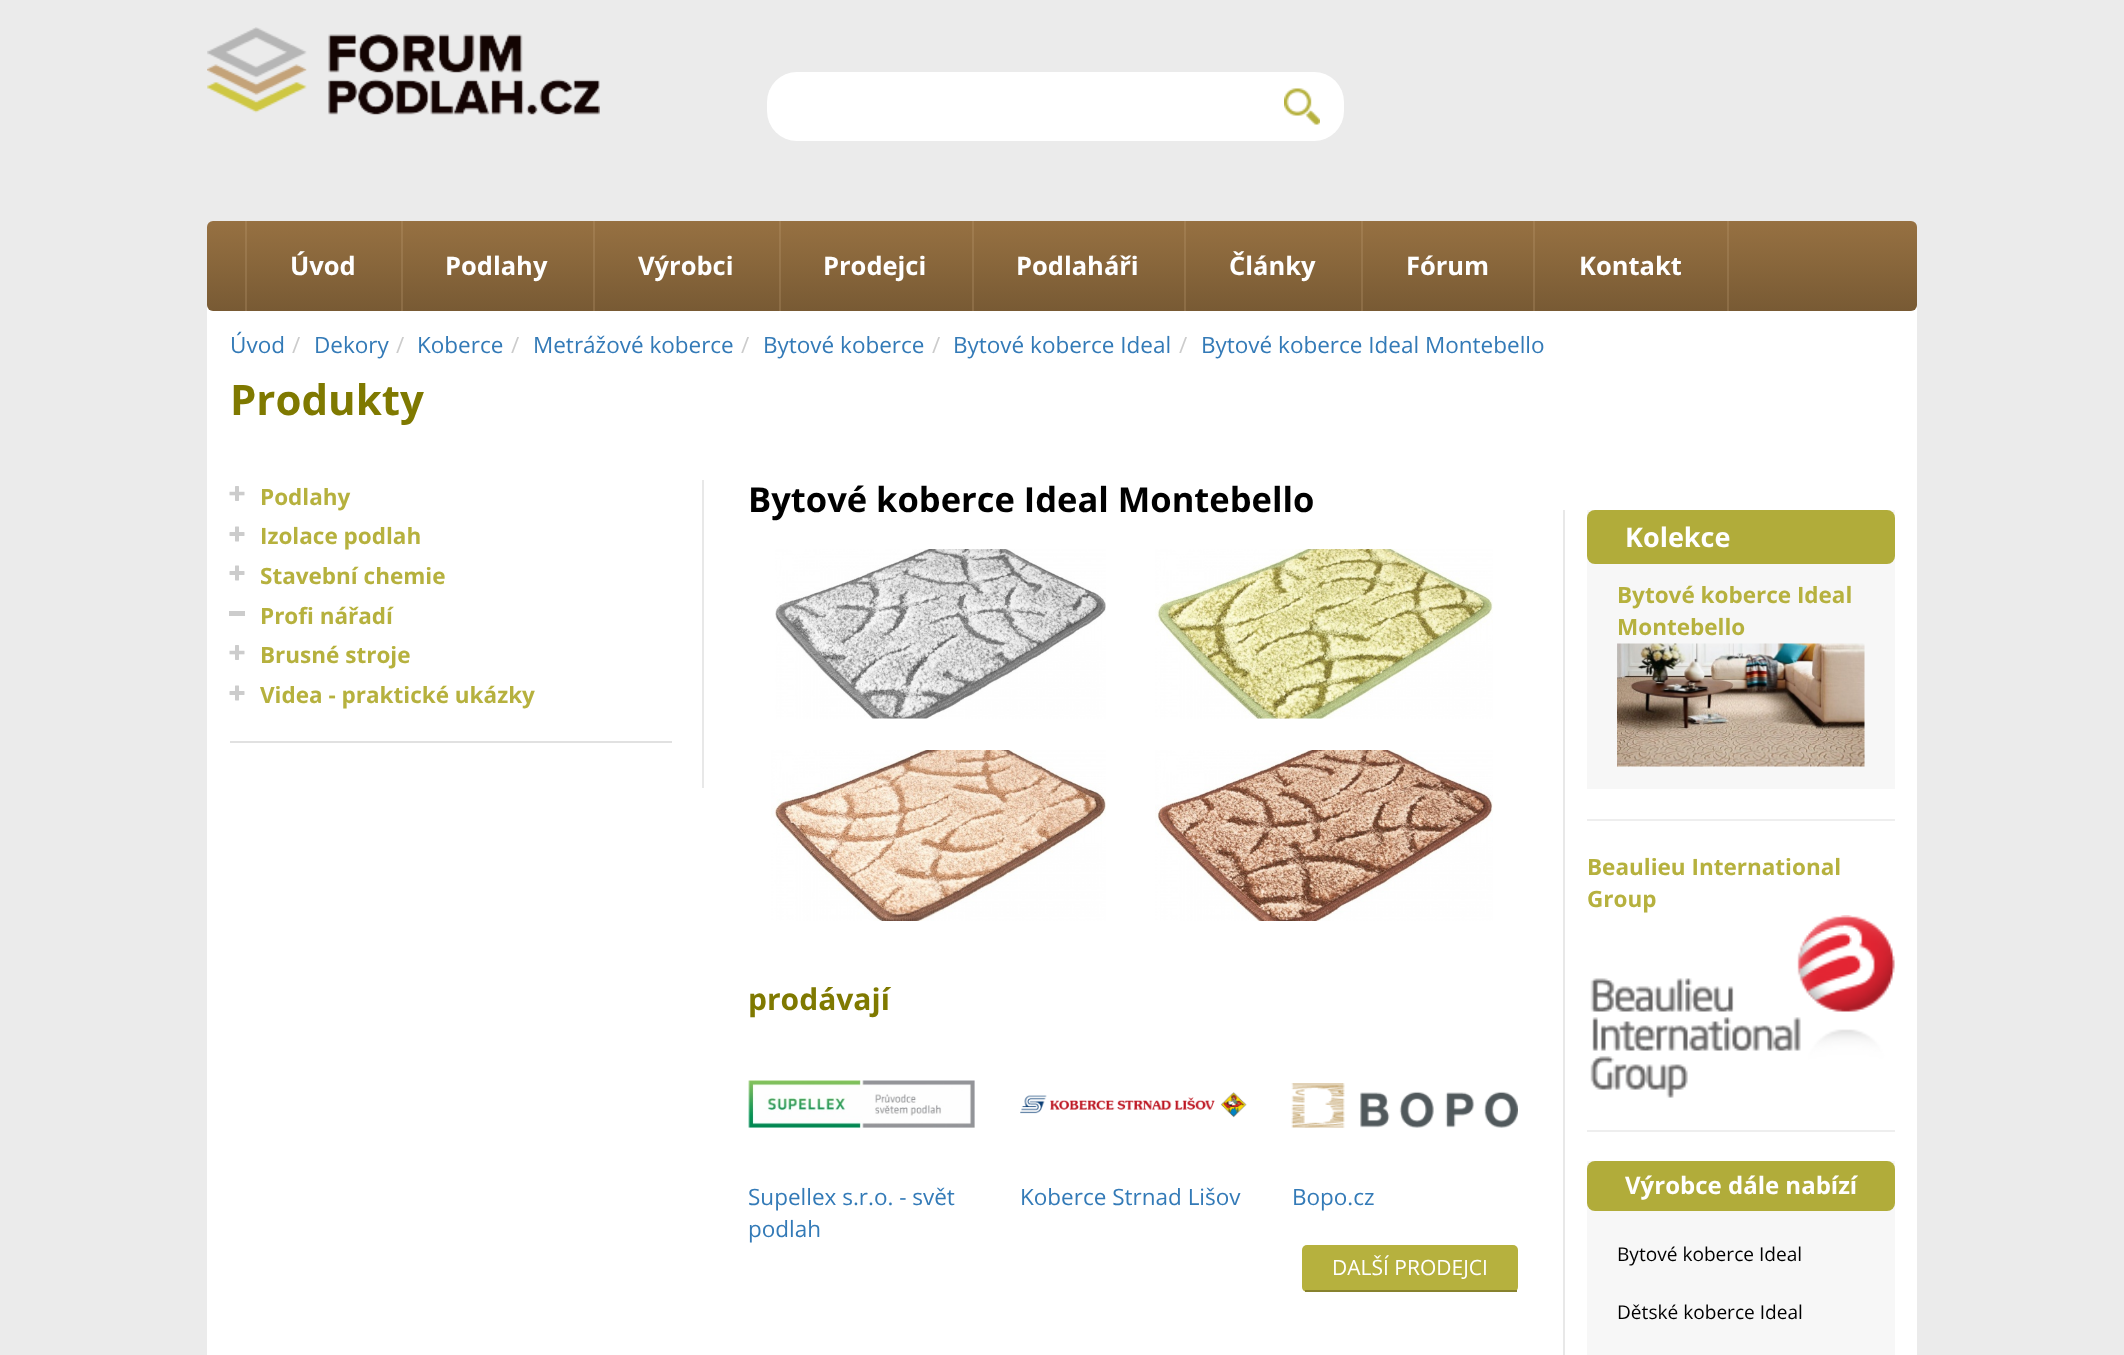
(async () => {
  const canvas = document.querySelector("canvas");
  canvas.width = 2124;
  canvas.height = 1355;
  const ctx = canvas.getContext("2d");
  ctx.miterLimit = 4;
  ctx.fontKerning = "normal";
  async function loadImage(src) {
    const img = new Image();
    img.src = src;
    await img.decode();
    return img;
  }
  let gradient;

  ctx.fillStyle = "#ebebeb";
  ctx.fillRect(0, 0, 2124, 1355);
  ctx.drawImage(await loadImage("img/1.png"), 207, 27, 393, 88);
  ctx.fillStyle = "#ffffff";
  ctx.beginPath();
  ctx.roundRect(767, 72, 495, 69, [30, 0, 0, 30]);
  ctx.fill();
  ctx.beginPath();
  ctx.roundRect(1262, 72, 82, 69, [0, 30, 30, 0]);
  ctx.fill();
  ctx.drawImage(await loadImage("img/2.png"), 1284, 88, 36, 37);
  ctx.fillRect(207, 306, 1710, 1049);
  gradient = ctx.createLinearGradient(1062, 220, 1062, 311);
  gradient.addColorStop(0, "#977142");
  gradient.addColorStop(0.5, "#88663b");
  gradient.addColorStop(1, "#785a34");
  ctx.fillStyle = gradient;
  ctx.beginPath();
  ctx.roundRect(207, 221, 1710, 90, 6);
  ctx.fill();
  gradient = ctx.createLinearGradient(245, 221, 245, 311);
  gradient.addColorStop(0, "#a27d4f");
  gradient.addColorStop(0.5, "#96754b");
  gradient.addColorStop(1, "#8b6c45");
  ctx.fillStyle = gradient;
  ctx.fillRect(245, 221, 2, 90);
  gradient = ctx.createLinearGradient(401, 221, 401, 311);
  gradient.addColorStop(0, "#a27d4f");
  gradient.addColorStop(0.5, "#96754b");
  gradient.addColorStop(1, "#8b6c45");
  ctx.fillStyle = gradient;
  ctx.fillRect(401, 221, 2, 90);
  gradient = ctx.createLinearGradient(593, 221, 593, 311);
  gradient.addColorStop(0, "#a27d4f");
  gradient.addColorStop(0.5, "#96754b");
  gradient.addColorStop(1, "#8b6c45");
  ctx.fillStyle = gradient;
  ctx.fillRect(593, 221, 2, 90);
  gradient = ctx.createLinearGradient(779, 221, 779, 311);
  gradient.addColorStop(0, "#a27d4f");
  gradient.addColorStop(0.5, "#96754b");
  gradient.addColorStop(1, "#8b6c45");
  ctx.fillStyle = gradient;
  ctx.fillRect(779, 221, 2, 90);
  gradient = ctx.createLinearGradient(973, 221, 973, 311);
  gradient.addColorStop(0, "#a27d4f");
  gradient.addColorStop(0.5, "#96754b");
  gradient.addColorStop(1, "#8b6c45");
  ctx.fillStyle = gradient;
  ctx.fillRect(972, 221, 2, 90);
  gradient = ctx.createLinearGradient(1184, 221, 1184, 311);
  gradient.addColorStop(0, "#a27d4f");
  gradient.addColorStop(0.5, "#96754b");
  gradient.addColorStop(1, "#8b6c45");
  ctx.fillStyle = gradient;
  ctx.fillRect(1184, 221, 2, 90);
  gradient = ctx.createLinearGradient(1361, 221, 1361, 311);
  gradient.addColorStop(0, "#a27d4f");
  gradient.addColorStop(0.5, "#96754b");
  gradient.addColorStop(1, "#8b6c45");
  ctx.fillStyle = gradient;
  ctx.fillRect(1361, 221, 2, 90);
  gradient = ctx.createLinearGradient(1534, 221, 1534, 311);
  gradient.addColorStop(0, "#a27d4f");
  gradient.addColorStop(0.5, "#96754b");
  gradient.addColorStop(1, "#8b6c45");
  ctx.fillStyle = gradient;
  ctx.fillRect(1533, 221, 2, 90);
  gradient = ctx.createLinearGradient(1727, 221, 1727, 311);
  gradient.addColorStop(0, "#a27d4f");
  gradient.addColorStop(0.5, "#96754b");
  gradient.addColorStop(1, "#8b6c45");
  ctx.fillStyle = gradient;
  ctx.fillRect(1727, 221, 2, 90);
  ctx.fillStyle = "#e8e8e8";
  ctx.fillRect(702, 480, 2, 308);
  ctx.drawImage(await loadImage("img/3.png"), 229, 486, 16, 15);
  ctx.drawImage(await loadImage("img/4.png"), 229, 526, 16, 16);
  ctx.drawImage(await loadImage("img/4.png"), 229, 565, 16, 16);
  ctx.fillStyle = "#cccccc";
  ctx.fillRect(229, 611, 16, 5);
  ctx.drawImage(await loadImage("img/3.png"), 229, 645, 16, 15);
  ctx.drawImage(await loadImage("img/4.png"), 229, 685, 16, 16);
  ctx.fillStyle = "#e1e1e1";
  ctx.fillRect(230, 741, 442, 2);
  ctx.drawImage(await loadImage("img/5.png"), 775, 549, 331, 170);
  ctx.drawImage(await loadImage("img/6.png"), 1155, 549, 338, 170);
  ctx.drawImage(await loadImage("img/7.png"), 771, 750, 335, 171);
  ctx.drawImage(await loadImage("img/8.png"), 1155, 750, 338, 171);
  ctx.drawImage(await loadImage("img/9.png"), 748, 1080, 227, 48);
  ctx.drawImage(await loadImage("img/10.png"), 1020, 1092, 227, 26);
  ctx.drawImage(await loadImage("img/11.png"), 1291, 1083, 227, 45);
  ctx.fillStyle = "#b6b13e";
  ctx.beginPath();
  ctx.roundRect(1302, 1245, 216, 47, 5);
  ctx.fill();
  for (const [x, y, w, h, color] of [
    [1305, 1290, 212, 2, "#87822e"],
    [1563, 510, 2, 845, "#e8e8e8"],
    [1587, 510, 308, 279, "#f7f7f7"],
  ]) {
    ctx.fillStyle = color;
    ctx.fillRect(x, y, w, h);
  }
  ctx.fillStyle = "#b1ac3a";
  ctx.beginPath();
  ctx.roundRect(1587, 510, 308, 54, 8);
  ctx.fill();
  ctx.drawImage(await loadImage("img/12.png"), 1617, 643, 248, 124);
  ctx.fillStyle = "#eeeeee";
  ctx.fillRect(1587, 819, 308, 2);
  ctx.drawImage(await loadImage("img/13.png"), 1590, 915, 305, 183);
  ctx.fillRect(1587, 1130, 308, 2);
  ctx.fillStyle = "#f7f7f7";
  ctx.fillRect(1587, 1161, 308, 194);
  ctx.fillStyle = "#b1ac3a";
  ctx.beginPath();
  ctx.roundRect(1587, 1161, 308, 50, 8);
  ctx.fill();
  ctx.font = "bold 25.5px Open Sans";
  ctx.fillStyle = "#ffffff";
  for (const [text, x, y] of [
    ["Úvod", 290, 275],
    ["Podlahy", 445, 275],
    ["Výrobci", 638, 275],
    ["Prodejci", 823, 275],
    ["Podlaháři", 1016, 275],
    ["Články", 1229, 275],
    ["Fórum", 1406, 275],
    ["Kontakt", 1579, 275],
  ]) {
    ctx.fillText(text, x, y);
  }
  ctx.font = "22.5px Open Sans";
  ctx.fillStyle = "#337ab7";
  ctx.fillText("Úvod", 230, 353);
  ctx.fillStyle = "#cccccc";
  ctx.fillText("/", 292, 353);
  ctx.fillStyle = "#337ab7";
  ctx.fillText("Dekory", 314, 353);
  ctx.fillStyle = "#cccccc";
  ctx.fillText("/", 396, 353);
  ctx.fillStyle = "#337ab7";
  ctx.fillText("Koberce", 417, 353);
  ctx.fillStyle = "#cccccc";
  ctx.fillText("/", 511, 353);
  ctx.fillStyle = "#337ab7";
  ctx.fillText("Metrážové koberce", 533, 353);
  ctx.fillStyle = "#cccccc";
  ctx.fillText("/", 741, 353);
  ctx.fillStyle = "#337ab7";
  ctx.fillText("Bytové koberce", 763, 353);
  ctx.fillStyle = "#cccccc";
  ctx.fillText("/", 932, 353);
  ctx.fillStyle = "#337ab7";
  ctx.fillText("Bytové koberce Ideal", 953, 353);
  ctx.fillStyle = "#cccccc";
  ctx.fillText("/", 1179, 353);
  ctx.fillStyle = "#337ab7";
  ctx.fillText("Bytové koberce Ideal Montebello", 1201, 353);
  ctx.font = "bold 42px Open Sans";
  ctx.fillStyle = "#7f7900";
  ctx.fillText("Produkty", 230, 415);
  ctx.font = "bold 22.5px Open Sans";
  ctx.fillStyle = "#b6b13e";
  for (const [text, x, y] of [
    ["Podlahy", 260, 505],
    ["Izolace podlah", 260, 544],
    ["Stavební chemie", 260, 584],
    ["Profi nářadí", 260, 624],
    ["Brusné stroje", 260, 663],
    ["Videa - praktické ukázky", 260, 703],
  ]) {
    ctx.fillText(text, x, y);
  }
  ctx.font = "bold 34.5px Open Sans";
  ctx.fillStyle = "#000000";
  ctx.fillText("Bytové koberce Ideal Montebello", 748, 512);
  ctx.font = "bold 30px Open Sans";
  ctx.fillStyle = "#7f7900";
  ctx.fillText("prodávají", 748, 1010);
  ctx.font = "22.5px Open Sans";
  ctx.fillStyle = "#337ab7";
  for (const [text, x, y] of [
    ["Supellex s.r.o. - svět", 748, 1205],
    ["podlah", 748, 1237],
    ["Koberce Strnad Lišov", 1020, 1205],
    ["Bopo.cz", 1292, 1205],
  ]) {
    ctx.fillText(text, x, y);
  }
  ctx.font = "21px Open Sans";
  ctx.fillStyle = "#ffffff";
  ctx.fillText("DALŠÍ PRODEJCI", 1332, 1275);
  ctx.font = "bold 27px Open Sans";
  ctx.fillText("Kolekce", 1625, 547);
  ctx.font = "bold 22.5px Open Sans";
  ctx.fillStyle = "#b6b13e";
  for (const [text, x, y] of [
    ["Bytové koberce Ideal", 1617, 603],
    ["Montebello", 1617, 635],
    ["Beaulieu International", 1587, 875],
    ["Group", 1587, 907],
  ]) {
    ctx.fillText(text, x, y);
  }
  ctx.font = "bold 24px Open Sans";
  ctx.fillStyle = "#ffffff";
  ctx.fillText("Výrobce dále nabízí", 1625, 1194);
  ctx.font = "19.1px Open Sans";
  ctx.fillStyle = "#000000";
  ctx.fillText("Bytové koberce Ideal", 1617, 1261);
  ctx.fillText("Dětské koberce Ideal", 1617, 1319);
})();
